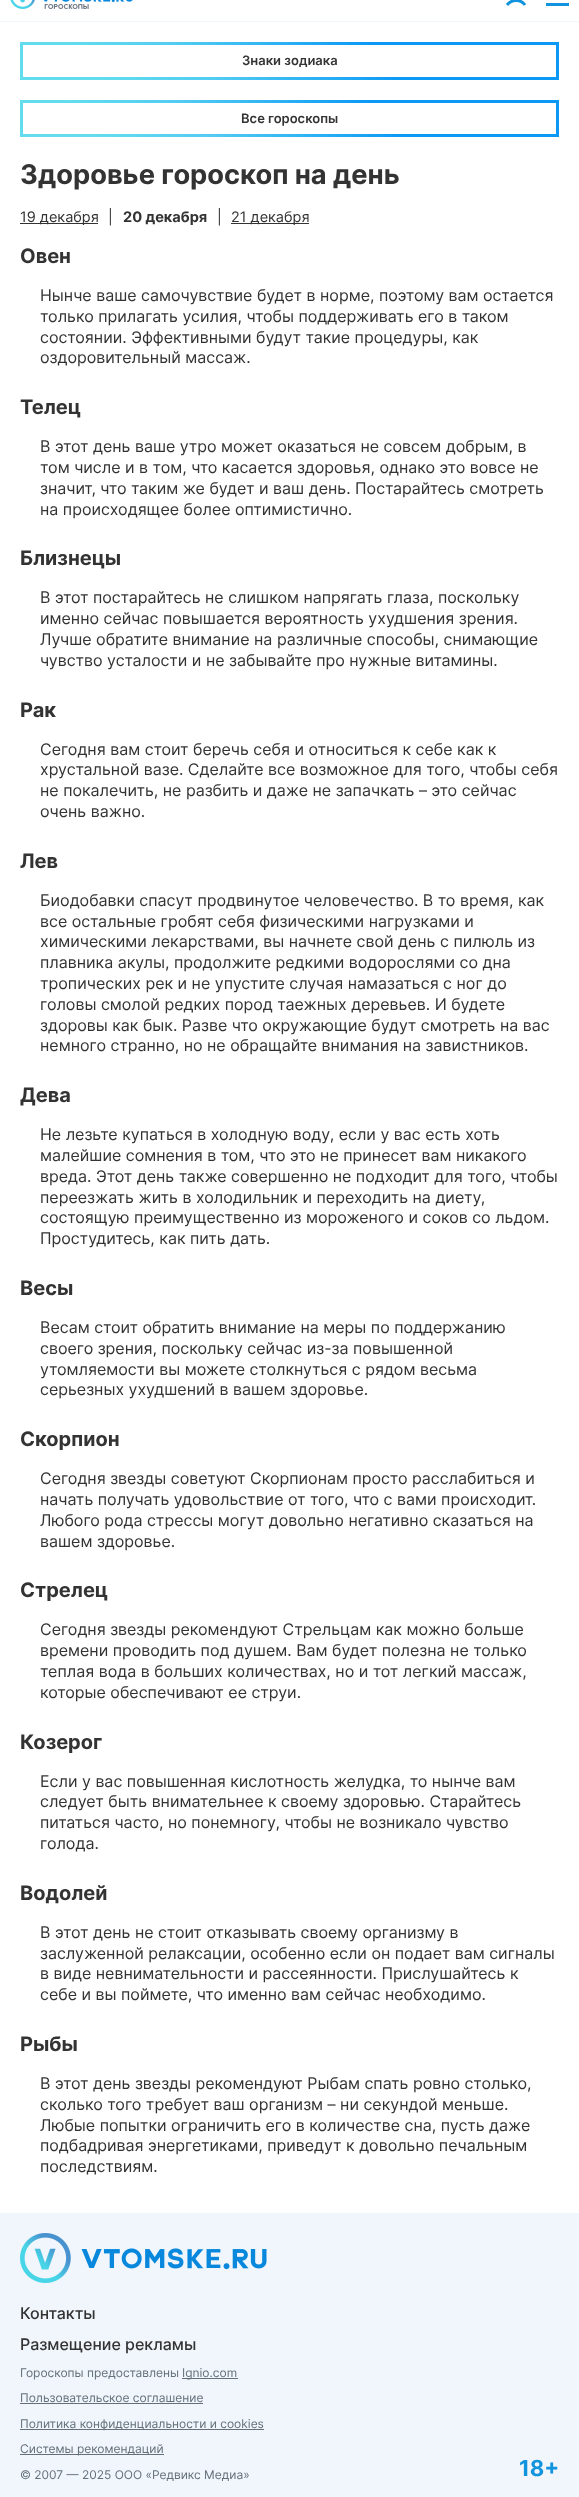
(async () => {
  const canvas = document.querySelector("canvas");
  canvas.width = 579;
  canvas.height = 2497;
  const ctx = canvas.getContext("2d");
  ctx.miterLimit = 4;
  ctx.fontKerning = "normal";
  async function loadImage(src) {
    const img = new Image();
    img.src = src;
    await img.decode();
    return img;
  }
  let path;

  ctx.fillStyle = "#ffffff";
  ctx.fillRect(0, 0, 579, 2497);
  ctx.drawImage(await loadImage("img/1.png"), 10, 0, 123, 9);
  path = new Path2D("M507 5C511.5-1 521-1 525 5M546 4.5H569M546-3.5H569M546-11.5H569");
  ctx.strokeStyle = "#1293de";
  ctx.lineWidth = 3;
  ctx.stroke(path);
  ctx.fillStyle = "#f0f6fc";
  ctx.fillRect(0, 21, 579, 1);
  ctx.drawImage(await loadImage("img/2.png"), 20, 42, 539, 38);
  ctx.drawImage(await loadImage("img/3.png"), 20, 100, 539, 37);
  for (const [x, y, w, h, color] of [
    [20, 223, 78, 1, "#333333"],
    [231, 223, 78, 1, "#333333"],
    [0, 2213, 579, 284, "#f0f6fc"],
  ]) {
    ctx.fillStyle = color;
    ctx.fillRect(x, y, w, h);
  }
  ctx.drawImage(await loadImage("img/4.png"), 20, 2233, 247, 50);
  for (const [x, y, w, h, color] of [
    [182, 2378, 56, 1, "#65707a"],
    [20, 2403, 183, 1, "#65707a"],
    [20, 2429, 244, 1, "#65707a"],
    [20, 2454, 144, 1, "#65707a"],
  ]) {
    ctx.fillStyle = color;
    ctx.fillRect(x, y, w, h);
  }
  ctx.font = "600 13px Inter";
  ctx.fillStyle = "#333333";
  ctx.fillText("Знаки зодиака", 242, 65);
  ctx.fillText("Все гороскопы", 241, 123);
  ctx.font = "bold 27.25px Inter";
  ctx.fillText("Здоровье гороскоп на день", 20, 184);
  ctx.font = "14.5px Inter";
  ctx.fillText("19 декабря", 20, 222);
  ctx.fillText("|", 108, 222);
  ctx.font = "bold 14.5px Inter";
  ctx.fillText("20 декабря", 123, 222);
  ctx.font = "14.5px Inter";
  ctx.fillText("|", 217, 222);
  ctx.fillText("21 декабря", 231, 222);
  ctx.font = "bold 20px Inter";
  ctx.fillText("Овен", 20, 263);
  ctx.font = "16px Inter";
  for (const [text, x, y] of [
    ["Нынче ваше самочувствие будет в норме, поэтому вам остается", 40, 301],
    ["только прилагать усилия, чтобы поддерживать его в таком", 40, 322],
    ["состоянии. Эффективными будут такие процедуры, как", 40, 343],
    ["оздоровительный массаж.", 40, 363],
  ]) {
    ctx.fillText(text, x, y);
  }
  ctx.font = "bold 20px Inter";
  ctx.fillText("Телец", 20, 414);
  ctx.font = "16px Inter";
  for (const [text, x, y] of [
    ["В этот день ваше утро может оказаться не совсем добрым, в", 40, 452],
    ["том числе и в том, что касается здоровья, однако это вовсе не", 40, 473],
    ["значит, что таким же будет и ваш день. Постарайтесь смотреть", 40, 494],
    ["на происходящее более оптимистично.", 40, 515],
  ]) {
    ctx.fillText(text, x, y);
  }
  ctx.font = "bold 20px Inter";
  ctx.fillText("Близнецы", 20, 565);
  ctx.font = "16px Inter";
  for (const [text, x, y] of [
    ["В этот постарайтесь не слишком напрягать глаза, поскольку", 40, 603],
    ["именно сейчас повышается вероятность ухудшения зрения.", 40, 624],
    ["Лучше обратите внимание на различные способы, снимающие", 40, 645],
    ["чувство усталости и не забывайте про нужные витамины.", 40, 666],
  ]) {
    ctx.fillText(text, x, y);
  }
  ctx.font = "bold 20px Inter";
  ctx.fillText("Рак", 20, 717);
  ctx.font = "16px Inter";
  for (const [text, x, y] of [
    ["Сегодня вам стоит беречь себя и относиться к себе как к", 40, 755],
    ["хрустальной вазе. Сделайте все возможное для того, чтобы себя", 40, 775],
    ["не покалечить, не разбить и даже не запачкать – это сейчас", 40, 796],
    ["очень важно.", 40, 817],
  ]) {
    ctx.fillText(text, x, y);
  }
  ctx.font = "bold 20px Inter";
  ctx.fillText("Лев", 20, 868);
  ctx.font = "16px Inter";
  for (const [text, x, y] of [
    ["Биодобавки спасут продвинутое человечество. В то время, как", 40, 906],
    ["все остальные гробят себя физическими нагрузками и", 40, 927],
    ["химическими лекарствами, вы начнете свой день с пилюль из", 40, 947],
    ["плавника акулы, продолжите редкими водорослями со дна", 40, 968],
    ["тропических рек и не упустите случая намазаться с ног до", 40, 989],
    ["головы смолой редких пород таежных деревьев. И будете", 40, 1010],
    ["здоровы как бык. Разве что окружающие будут смотреть на вас", 40, 1031],
    ["немного странно, но не обращайте внимания на завистников.", 40, 1051],
  ]) {
    ctx.fillText(text, x, y);
  }
  ctx.font = "bold 20px Inter";
  ctx.fillText("Дева", 20, 1102);
  ctx.font = "16px Inter";
  for (const [text, x, y] of [
    ["Не лезьте купаться в холодную воду, если у вас есть хоть", 40, 1140],
    ["малейшие сомнения в том, что это не принесет вам никакого", 40, 1161],
    ["вреда. Этот день также совершенно не подходит для того, чтобы", 40, 1182],
    ["переезжать жить в холодильник и переходить на диету,", 40, 1203],
    ["состоящую преимущественно из мороженого и соков со льдом.", 40, 1223],
    ["Простудитесь, как пить дать.", 40, 1244],
  ]) {
    ctx.fillText(text, x, y);
  }
  ctx.font = "bold 20px Inter";
  ctx.fillText("Весы", 20, 1295);
  ctx.font = "16px Inter";
  for (const [text, x, y] of [
    ["Весам стоит обратить внимание на меры по поддержанию", 40, 1333],
    ["своего зрения, поскольку сейчас из-за повышенной", 40, 1354],
    ["утомляемости вы можете столкнуться с рядом весьма", 40, 1375],
    ["серьезных ухудшений в вашем здоровье.", 40, 1395],
  ]) {
    ctx.fillText(text, x, y);
  }
  ctx.font = "bold 20px Inter";
  ctx.fillText("Скорпион", 20, 1446);
  ctx.font = "16px Inter";
  for (const [text, x, y] of [
    ["Сегодня звезды советуют Скорпионам просто расслабиться и", 40, 1484],
    ["начать получать удовольствие от того, что с вами происходит.", 40, 1505],
    ["Любого рода стрессы могут довольно негативно сказаться на", 40, 1526],
    ["вашем здоровье.", 40, 1547],
  ]) {
    ctx.fillText(text, x, y);
  }
  ctx.font = "bold 20px Inter";
  ctx.fillText("Стрелец", 20, 1597);
  ctx.font = "16px Inter";
  for (const [text, x, y] of [
    ["Сегодня звезды рекомендуют Стрельцам как можно больше", 40, 1635],
    ["времени проводить под душем. Вам будет полезна не только", 40, 1656],
    ["теплая вода в больших количествах, но и тот легкий массаж,", 40, 1677],
    ["которые обеспечивают ее струи.", 40, 1698],
  ]) {
    ctx.fillText(text, x, y);
  }
  ctx.font = "bold 20px Inter";
  ctx.fillText("Козерог", 20, 1749);
  ctx.font = "16px Inter";
  for (const [text, x, y] of [
    ["Если у вас повышенная кислотность желудка, то нынче вам", 40, 1787],
    ["следует быть внимательнее к своему здоровью. Старайтесь", 40, 1807],
    ["питаться часто, но понемногу, чтобы не возникало чувство", 40, 1828],
    ["голода.", 40, 1849],
  ]) {
    ctx.fillText(text, x, y);
  }
  ctx.font = "bold 20px Inter";
  ctx.fillText("Водолей", 20, 1900);
  ctx.font = "16px Inter";
  for (const [text, x, y] of [
    ["В этот день не стоит отказывать своему организму в", 40, 1938],
    ["заслуженной релаксации, особенно если он подает вам сигналы", 40, 1959],
    ["в виде невнимательности и рассеянности. Прислушайтесь к", 40, 1979],
    ["себе и вы поймете, что именно вам сейчас необходимо.", 40, 2000],
  ]) {
    ctx.fillText(text, x, y);
  }
  ctx.font = "bold 20px Inter";
  ctx.fillText("Рыбы", 20, 2051);
  ctx.font = "16px Inter";
  for (const [text, x, y] of [
    ["В этот день звезды рекомендуют Рыбам спать ровно столько,", 40, 2089],
    ["сколько того требует ваш организм – ни секундой меньше.", 40, 2110],
    ["Любые попытки ограничить его в количестве сна, пусть даже", 40, 2131],
    ["подбадривая энергетиками, приведут к довольно печальным", 40, 2151],
    ["последствиям.", 40, 2172],
  ]) {
    ctx.fillText(text, x, y);
  }
  ctx.font = "500 16px Inter";
  ctx.fillText("Контакты", 20, 2319);
  ctx.fillText("Размещение рекламы", 20, 2350);
  ctx.font = "12px Inter";
  ctx.fillStyle = "#65707a";
  for (const [text, x, y] of [
    ["Гороскопы предоставлены", 20, 2377],
    ["Ignio.com", 182, 2377],
    ["Пользовательское соглашение", 20, 2402],
    ["Политика конфиденциальности и cookies", 20, 2428],
    ["Системы рекомендаций", 20, 2453],
    ["© 2007 — 2025 ООО «Редвикс Медиа»", 20, 2479],
  ]) {
    ctx.fillText(text, x, y);
  }
  ctx.font = "bold 22px Inter";
  ctx.fillStyle = "#1293de";
  ctx.fillText("18+", 519, 2476);
})();
